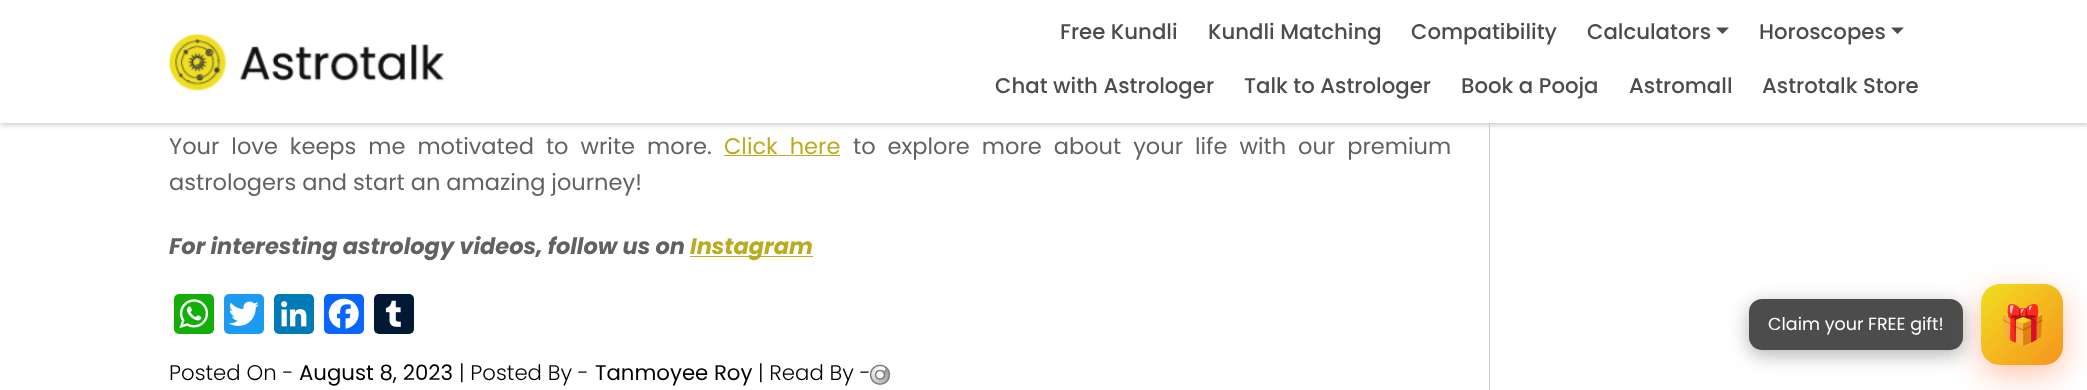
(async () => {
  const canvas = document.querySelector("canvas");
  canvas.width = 2087;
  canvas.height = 390;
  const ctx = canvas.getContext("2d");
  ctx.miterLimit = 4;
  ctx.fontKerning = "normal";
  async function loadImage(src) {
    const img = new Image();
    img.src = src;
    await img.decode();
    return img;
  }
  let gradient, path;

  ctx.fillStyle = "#ffffff";
  ctx.fillRect(0, 0, 2087, 390);
  ctx.fillStyle = "#cccccc";
  ctx.fillRect(1489, 123, 1, 267);
  ctx.filter = "blur(2.5px)";
  ctx.beginPath();
  ctx.rect(0, 3, 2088, 122);
  ctx.fill();
  ctx.filter = "none";
  ctx.fillStyle = "#ffffff";
  ctx.fillRect(0, 0, 2087, 123);
  ctx.drawImage(await loadImage("img/1.png"), 168, 33, 276, 58);
  ctx.fillStyle = "#4c4c4c";
  path = new Path2D("M1716 27.5H1729L1722.5 34Z");
  ctx.fill(path);
  path = new Path2D("M1891 27.5H1904L1897.5 34Z");
  ctx.fill(path);
  ctx.fillStyle = "#bbab21";
  ctx.fillRect(724, 155, 116, 1);
  ctx.fillRect(690, 256, 123, 1);
  ctx.fillStyle = "#12af0a";
  ctx.beginPath();
  ctx.roundRect(174, 294, 40, 40, 5);
  ctx.fill();
  ctx.drawImage(await loadImage("img/2.png"), 179, 299, 30, 30);
  ctx.fillStyle = "#1d9bf0";
  ctx.beginPath();
  ctx.roundRect(224, 294, 40, 40, 5);
  ctx.fill();
  ctx.drawImage(await loadImage("img/3.png"), 229, 301, 30, 25);
  ctx.fillStyle = "#007bb5";
  ctx.beginPath();
  ctx.roundRect(274, 294, 40, 40, 5);
  ctx.fill();
  ctx.drawImage(await loadImage("img/4.png"), 281, 301, 26, 26);
  ctx.fillStyle = "#0866ff";
  ctx.beginPath();
  ctx.roundRect(324, 294, 40, 40, 5);
  ctx.fill();
  ctx.drawImage(await loadImage("img/5.png"), 328, 298, 31, 31);
  ctx.fillStyle = "#001935";
  ctx.beginPath();
  ctx.roundRect(374, 294, 40, 40, 5);
  ctx.fill();
  ctx.drawImage(await loadImage("img/6.png"), 385, 300, 16, 27);
  ctx.drawImage(await loadImage("img/7.png"), 870, 364, 20, 21);
  ctx.fillStyle = "rgba(0, 0, 0, 0.3)";
  ctx.filter = "blur(9.5px)";
  ctx.beginPath();
  ctx.roundRect(1749, 304, 214, 51, 13);
  ctx.fill();
  ctx.filter = "none";
  ctx.fillStyle = "#4c4c4c";
  ctx.beginPath();
  ctx.roundRect(1749, 299, 214, 51, 13);
  ctx.fill();
  ctx.fillStyle = "rgba(255, 107, 53, 0.4)";
  ctx.filter = "blur(15.5px)";
  ctx.beginPath();
  ctx.roundRect(1981, 294, 82, 81, 19);
  ctx.fill();
  ctx.filter = "none";
  gradient = ctx.createLinearGradient(1981, 284, 2063, 365);
  gradient.addColorStop(0, "#f0df20");
  gradient.addColorStop(1, "#f7931e");
  ctx.fillStyle = gradient;
  ctx.beginPath();
  ctx.roundRect(1981, 284, 82, 81, 19);
  ctx.fill();
  ctx.font = "500 21.25px Poppins";
  ctx.fillStyle = "#4c4c4c";
  for (const [text, x, y] of [
    ["Free Kundli", 1060, 39],
    ["Kundli Matching", 1208, 39],
    ["Compatibility", 1411, 39],
    ["Calculators", 1587, 39],
    ["Horoscopes", 1759, 39],
    ["Chat with Astrologer", 995, 93],
    ["Talk to Astrologer", 1244, 93],
    ["Book a Pooja", 1461, 93],
    ["Astromall", 1629, 93],
    ["Astrotalk Store", 1762, 93],
  ]) {
    ctx.fillText(text, x, y);
  }
  ctx.wordSpacing = "6px";
  ctx.font = "22.5px Poppins";
  ctx.fillStyle = "#616161";
  ctx.fillText("Your love keeps me motivated to write more.", 169, 154);
  ctx.fillStyle = "#bbab21";
  ctx.fillText("Click here", 724, 154);
  ctx.fillStyle = "#616161";
  ctx.fillText("to explore more about your life with our premium", 853, 154);
  ctx.wordSpacing = "0px";
  ctx.fillText("astrologers and start an amazing journey!", 169, 190);
  ctx.font = "italic bold 22.5px Poppins";
  ctx.fillText("For interesting astrology videos, follow us on", 169, 254);
  ctx.fillStyle = "#bbab21";
  ctx.fillText("Instagram", 690, 254);
  ctx.font = "300 21.25px Poppins";
  ctx.fillStyle = "#000000";
  ctx.fillText("Posted On -", 169, 380);
  ctx.font = "21.25px Poppins";
  ctx.fillText("August 8, 2023", 299, 380);
  ctx.font = "300 21.25px Poppins";
  ctx.fillText("| Posted By -", 459, 380);
  ctx.font = "21.25px Poppins";
  ctx.fillText("Tanmoyee Roy", 595, 380);
  ctx.font = "300 21.25px Poppins";
  ctx.fillText("| Read By -", 758, 380);
  ctx.font = "17.5px Poppins";
  ctx.fillStyle = "#ffffff";
  ctx.fillText("Claim your FREE gift!", 1768, 330);
  ctx.font = "38px Noto Color Emoji";
  ctx.fillStyle = "#212529";
  ctx.fillText("🎁", 1999, 338);
})();
